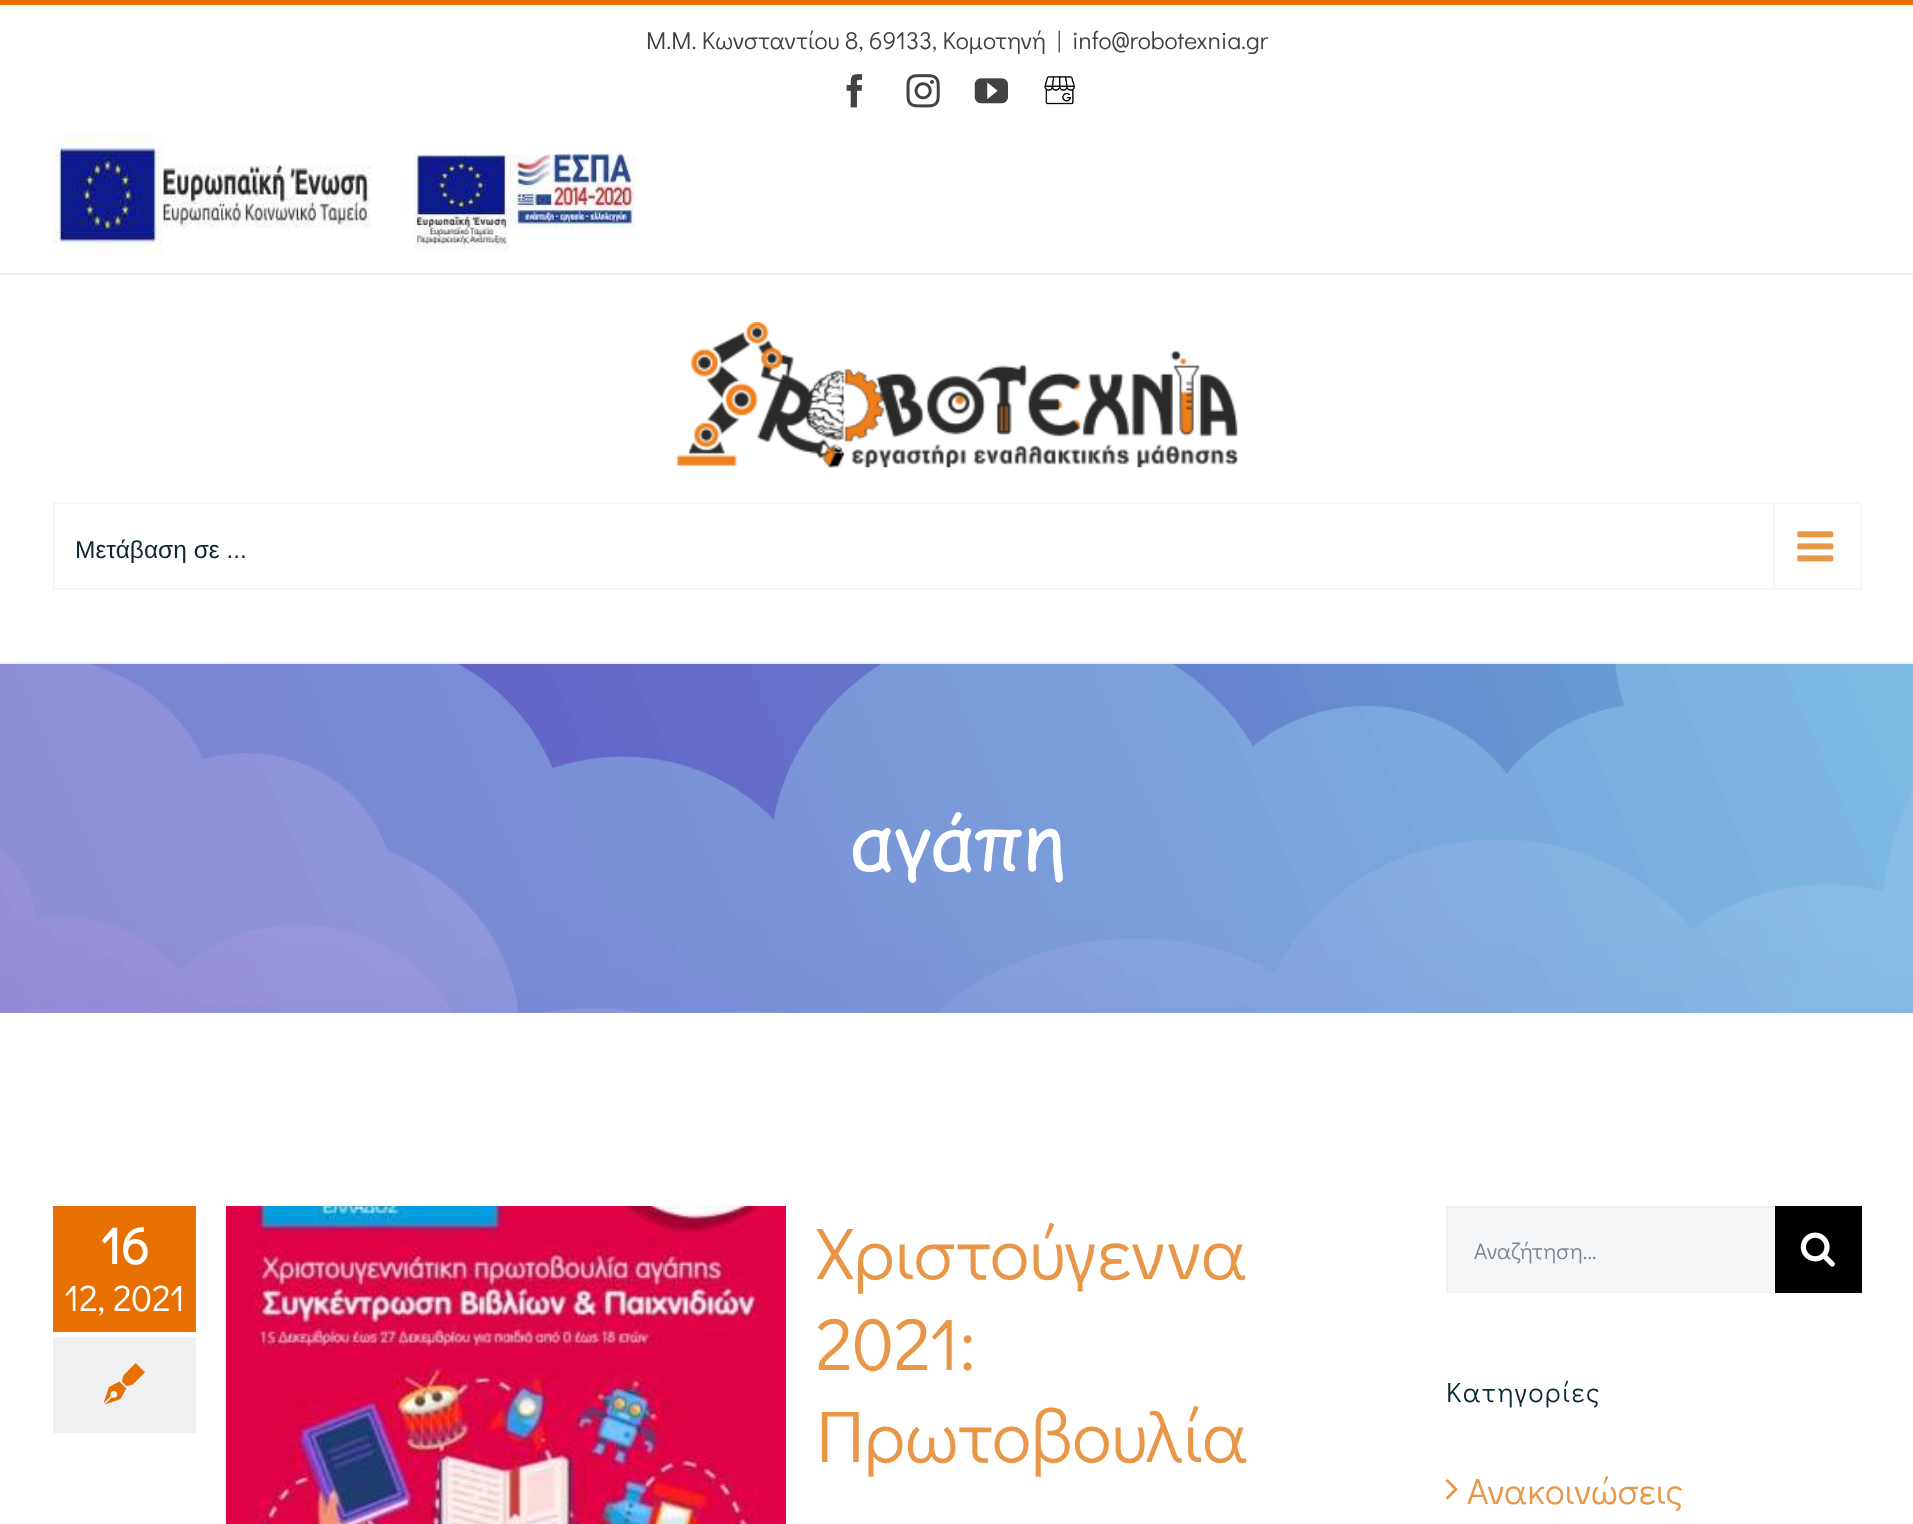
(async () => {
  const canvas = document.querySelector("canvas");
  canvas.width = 1913;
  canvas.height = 1524;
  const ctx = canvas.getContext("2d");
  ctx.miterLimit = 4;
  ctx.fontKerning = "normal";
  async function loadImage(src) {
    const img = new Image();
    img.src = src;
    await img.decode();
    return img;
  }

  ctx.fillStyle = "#ffffff";
  ctx.fillRect(0, 0, 1913, 1524);
  ctx.fillStyle = "#e87000";
  ctx.fillRect(0, 0, 1913, 5);
  ctx.fillStyle = "#edeef2";
  ctx.fillRect(0, 273, 1913, 2);
  ctx.drawImage(await loadImage("img/1.png"), 846, 74, 17, 34);
  ctx.drawImage(await loadImage("img/2.png"), 906, 74, 34, 34);
  ctx.drawImage(await loadImage("img/3.png"), 974, 78, 34, 26);
  ctx.drawImage(await loadImage("img/4.png"), 1044, 76, 31, 29);
  ctx.drawImage(await loadImage("img/5.png"), 52, 133, 319, 123);
  ctx.drawImage(await loadImage("img/6.png"), 402, 153, 235, 98);
  ctx.fillRect(0, 662, 1913, 2);
  ctx.drawImage(await loadImage("img/7.png"), 677, 322, 561, 146);
  ctx.strokeStyle = "#f4f6f7";
  ctx.lineWidth = 2;
  ctx.strokeRect(54, 503, 1807, 86);
  ctx.fillStyle = "#f4f6f7";
  ctx.fillRect(1773, 504, 2, 84);
  ctx.drawImage(await loadImage("img/8.png"), 1797, 531, 37, 31);
  ctx.drawImage(await loadImage("img/9.png"), 0, 664, 1913, 349);
  ctx.fillStyle = "#e87000";
  ctx.fillRect(53, 1206, 143, 126);
  ctx.fillStyle = "#eef0f2";
  ctx.fillRect(53, 1337, 143, 96);
  ctx.drawImage(await loadImage("img/10.png"), 103, 1363, 42, 42);
  ctx.drawImage(await loadImage("img/11.png"), 226, 1206, 560, 318);
  for (const [x, y, w, h, color] of [
    [1448, 1208, 327, 84, "#f4f6f7"],
    [1446, 1206, 329, 2, "#edeef2"],
    [1446, 1292, 329, 1, "#edeef2"],
    [1446, 1206, 2, 87, "#edeef2"],
    [1775, 1206, 87, 87, "#000000"],
  ]) {
    ctx.fillStyle = color;
    ctx.fillRect(x, y, w, h);
  }
  ctx.drawImage(await loadImage("img/12.png"), 1800, 1232, 35, 35);
  ctx.drawImage(await loadImage("img/13.png"), 1445, 1479, 13, 21);
  ctx.font = "24.5px Didact Gothic";
  ctx.fillStyle = "#404040";
  for (const [text, x, y] of [
    ["Μ.Μ. Κωνσταντίου 8, 69133, Κομοτηνή", 646, 49],
    ["|", 1057, 49],
    ["info@robotexnia.gr", 1072, 49],
  ]) {
    ctx.fillText(text, x, y);
  }
  ctx.font = "24.5px Liberation Sans";
  ctx.fillStyle = "#092933";
  ctx.fillText("Μετάβαση σε ...", 75, 558);
  ctx.font = "79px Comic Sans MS";
  ctx.fillStyle = "#ffffff";
  ctx.fillText("αγάπη", 851, 870);
  ctx.font = "bold 51px Didact Gothic";
  ctx.fillText("16", 100, 1264);
  ctx.font = "36.75px Didact Gothic";
  ctx.fillText("12, 2021", 64, 1311);
  ctx.font = "73.5px Didact Gothic";
  ctx.fillStyle = "#e89647";
  for (const [text, x, y] of [
    ["Χριστούγεννα", 816, 1279],
    ["2021:", 816, 1370],
    ["Πρωτοβουλία", 816, 1462],
  ]) {
    ctx.fillText(text, x, y);
  }
  ctx.font = "22.75px Didact Gothic";
  ctx.fillStyle = "#768894";
  ctx.fillText("Αναζήτηση...", 1474, 1259);
  ctx.letterSpacing = "1.75px";
  ctx.font = "28px Didact Gothic";
  ctx.fillStyle = "#092933";
  ctx.fillText("Kατηγορίες", 1446, 1402);
  ctx.letterSpacing = "0px";
  ctx.font = "36.75px Didact Gothic";
  ctx.fillStyle = "#e89647";
  ctx.fillText("Ανακοινώσεις", 1467, 1504);
})();
